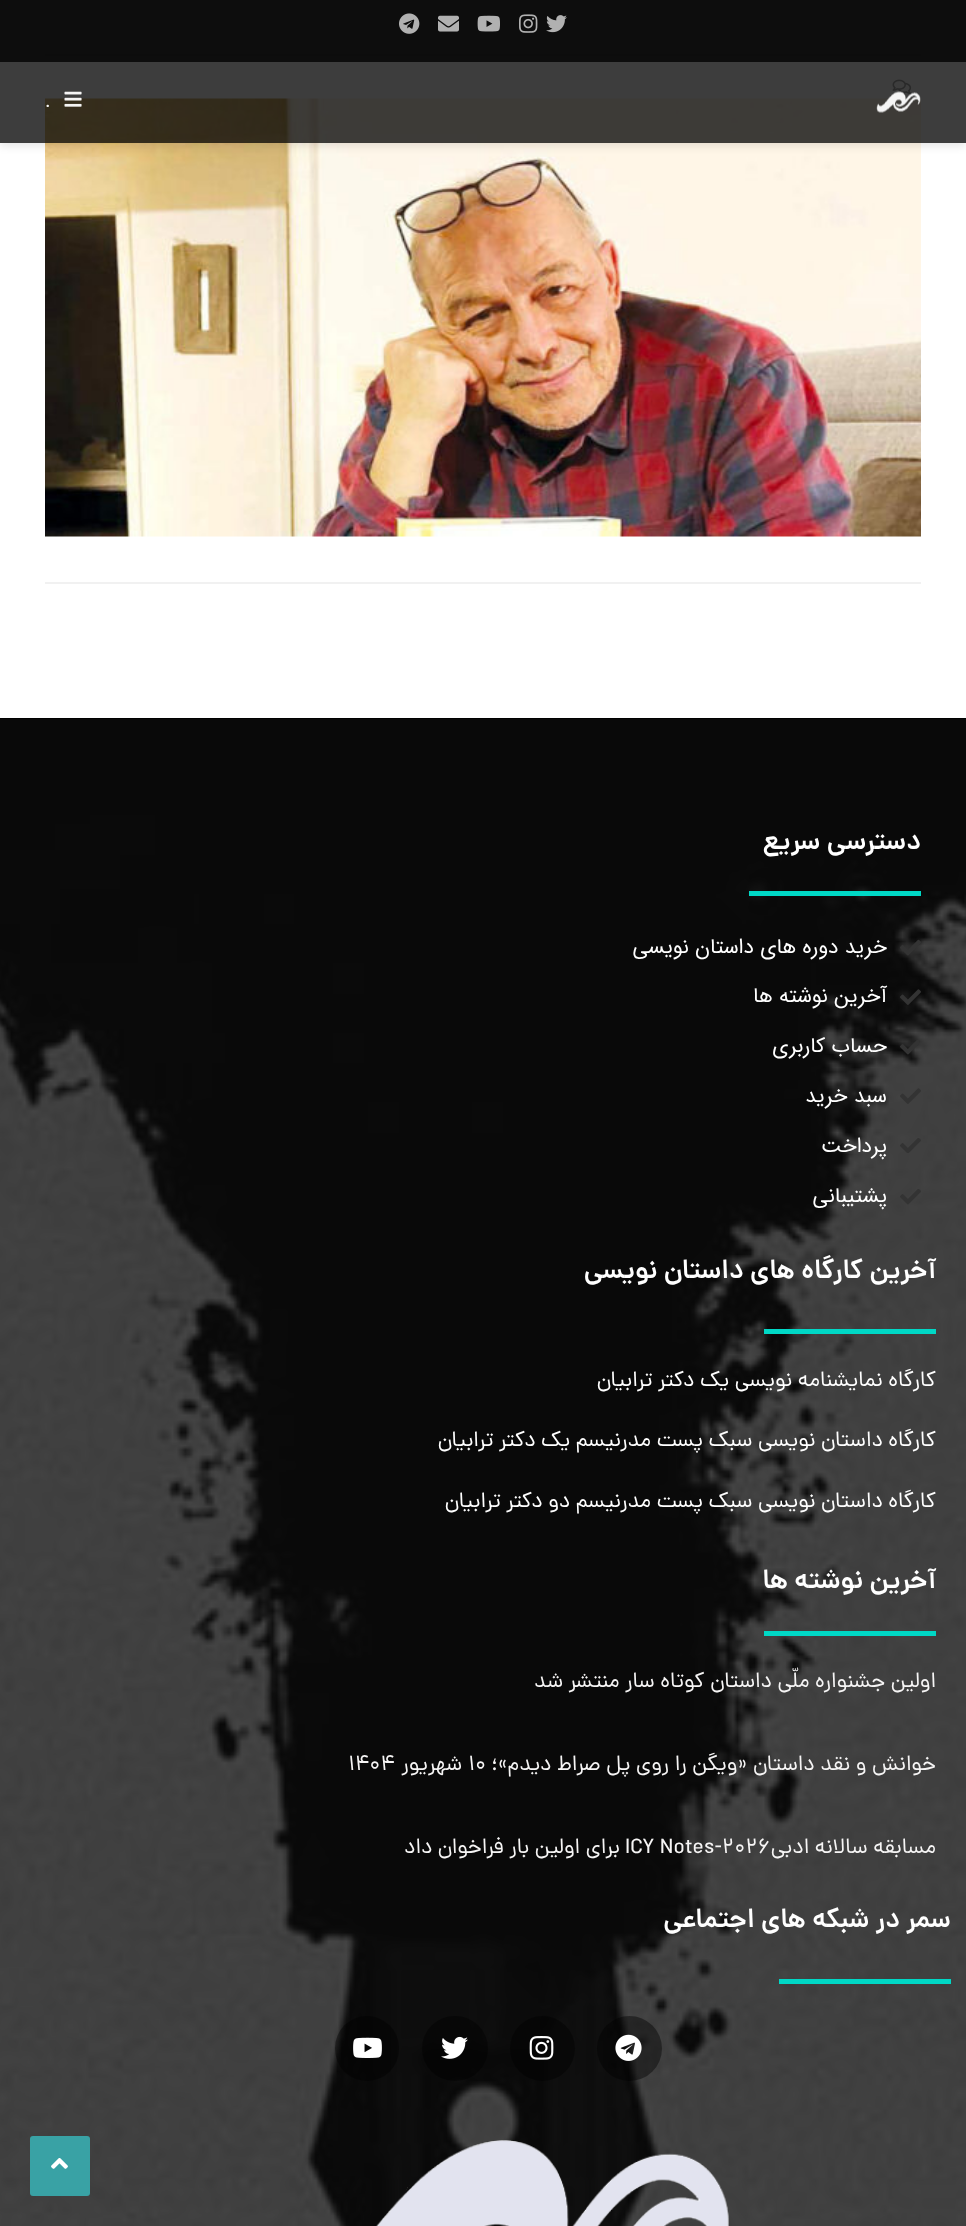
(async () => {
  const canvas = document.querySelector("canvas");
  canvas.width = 966;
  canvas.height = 2226;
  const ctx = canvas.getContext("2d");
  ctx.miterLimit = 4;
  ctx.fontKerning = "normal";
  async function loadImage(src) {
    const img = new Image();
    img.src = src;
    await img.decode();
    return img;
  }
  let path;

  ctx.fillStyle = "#ffffff";
  ctx.fillRect(0, 0, 966, 2226);
  ctx.fillStyle = "#e9e9e9";
  ctx.fillRect(45, 54, 876, 2);
  ctx.drawImage(await loadImage("img/6.png"), 892, 79, 20, 15);
  ctx.drawImage(await loadImage("img/7.png"), 45, 98, 876, 439);
  ctx.save();
  path = new Path2D("M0 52H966V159H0ZM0 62H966V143H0Z");
  ctx.clip(path, "evenodd");
  ctx.fillStyle = "rgba(0, 0, 0, 0.1)";
  ctx.filter = "blur(4px)";
  ctx.beginPath();
  ctx.rect(0, 65, 966, 81);
  ctx.fill();
  ctx.filter = "none";
  ctx.restore();
  ctx.fillStyle = "rgba(0, 0, 0, 0.95)";
  ctx.fillRect(0, 0, 966, 62);
  ctx.drawImage(await loadImage("img/1.png"), 546, 15, 21, 18);
  ctx.drawImage(await loadImage("img/2.png"), 519, 14, 19, 19);
  ctx.drawImage(await loadImage("img/3.png"), 477, 15, 23, 17);
  ctx.drawImage(await loadImage("img/4.png"), 438, 15, 21, 17);
  ctx.drawImage(await loadImage("img/5.png"), 399, 13, 21, 21);
  ctx.fillStyle = "#f1f1f1";
  ctx.fillRect(45, 582, 876, 2);
  ctx.fillStyle = "rgba(0, 0, 0, 0.76)";
  ctx.fillRect(0, 62, 966, 81);
  ctx.drawImage(await loadImage("img/8.png"), 876, 91, 45, 22);
  ctx.drawImage(await loadImage("img/9.png"), 64, 91, 18, 16);
  ctx.drawImage(await loadImage("img/10.png"), 0, 718, 966, 1508);
  ctx.fillStyle = "#00d8c6";
  ctx.fillRect(749, 891, 172, 5);
  ctx.drawImage(await loadImage("img/11.png"), 900, 939, 21, 17);
  ctx.drawImage(await loadImage("img/12.png"), 900, 989, 21, 16);
  ctx.drawImage(await loadImage("img/13.png"), 900, 1040, 19, 15);
  ctx.drawImage(await loadImage("img/14.png"), 900, 1088, 21, 16);
  ctx.drawImage(await loadImage("img/15.png"), 900, 1138, 21, 15);
  ctx.drawImage(await loadImage("img/16.png"), 900, 1189, 21, 16);
  for (const [x, y, w, h, color] of [
    [764, 1329, 172, 5, "#00d8c6"],
    [764, 1631, 172, 5, "#00d8c6"],
    [779, 1979, 172, 5, "#00d8c6"],
  ]) {
    ctx.fillStyle = color;
    ctx.fillRect(x, y, w, h);
  }
  ctx.fillStyle = "rgba(0, 0, 0, 0.42)";
  ctx.beginPath();
  ctx.arc(629.5, 2048.5, 32.5, 0, Math.PI * 2);
  ctx.fill();
  ctx.drawImage(await loadImage("img/17.png"), 615, 2034, 27, 27);
  ctx.beginPath();
  ctx.arc(542.5, 2048.5, 32.5, 0, Math.PI * 2);
  ctx.fill();
  ctx.drawImage(await loadImage("img/18.png"), 529, 2036, 25, 24);
  ctx.beginPath();
  ctx.roundRect(422, 2016, 66, 65, 32.5);
  ctx.fill();
  ctx.drawImage(await loadImage("img/19.png"), 441, 2036, 27, 23);
  ctx.beginPath();
  ctx.roundRect(335, 2016, 64, 65, 32);
  ctx.fill();
  ctx.drawImage(await loadImage("img/20.png"), 353, 2037, 29, 21);
  ctx.drawImage(await loadImage("img/21.png"), 376, 2140, 353, 86);
  ctx.fillStyle = "#39a2a5";
  ctx.beginPath();
  ctx.roundRect(30, 2136, 60, 60, 3);
  ctx.fill();
  ctx.drawImage(await loadImage("img/22.png"), 51, 2158, 17, 11);
  ctx.letterSpacing = "1px";
  ctx.font = "20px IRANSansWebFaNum";
  ctx.fillStyle = "#f6f5f5";
  ctx.fillText(".", 45, 107);
  ctx.letterSpacing = "0px";
  ctx.direction = "rtl";
  ctx.font = "600 27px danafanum";
  ctx.fillStyle = "#ffffff";
  ctx.fillText("دسترسی سریع", 921, 849);
  ctx.font = "21px IRANSansWebFaNum";
  for (const [text, x, y] of [
    ["خرید دوره های داستان نویسی", 887, 953],
    ["آخرین نوشته ها", 887, 1002],
    ["حساب کاربری", 887, 1052],
    ["سبد خرید", 887, 1102],
    ["پرداخت", 887, 1152],
    ["پشتیبانی", 887, 1202],
  ]) {
    ctx.fillText(text, x, y);
  }
  ctx.font = "600 27px danafanum";
  ctx.fillText("آخرین کارگاه های داستان نویسی", 936, 1278);
  ctx.font = "21.75px danafanum";
  for (const [text, x, y] of [
    ["کارگاه نمایشنامه نویسی یک دکتر ترابیان", 936, 1386],
    ["کارگاه داستان نویسی سبک پست مدرنیسم یک دکتر ترابیان", 936, 1446],
    ["کارگاه داستان نویسی سبک پست مدرنیسم دو دکتر ترابیان", 936, 1507],
  ]) {
    ctx.fillText(text, x, y);
  }
  ctx.font = "600 27px danafanum";
  ctx.fillText("آخرین نوشته ها", 936, 1588);
  ctx.font = "21.75px danafanum";
  ctx.fillStyle = "#f6f5f5";
  ctx.fillText("اولین جشنواره ملّی داستان کوتاه سار منتشر شد", 936, 1687);
  ctx.fillText("خوانش و نقد داستان «ویگن را روی پل صراط دیدم»؛", 936, 1770);
  ctx.direction = "ltr";
  ctx.fillText("۱۰", 468, 1770);
  ctx.direction = "rtl";
  ctx.fillText("شهریور", 462, 1770);
  ctx.direction = "ltr";
  ctx.fillText("۱۴۰۴", 348, 1770);
  ctx.direction = "rtl";
  ctx.fillText("مسابقه سالانه ادبی", 936, 1853);
  ctx.direction = "ltr";
  ctx.fillText("ICY Notes-2026", 625, 1853);
  ctx.direction = "rtl";
  ctx.fillText("برای اولین بار فراخوان داد", 620, 1853);
  ctx.font = "600 27px danafanum";
  ctx.fillStyle = "#ffffff";
  ctx.fillText("سمر در شبکه های اجتماعی", 951, 1927);
})();
